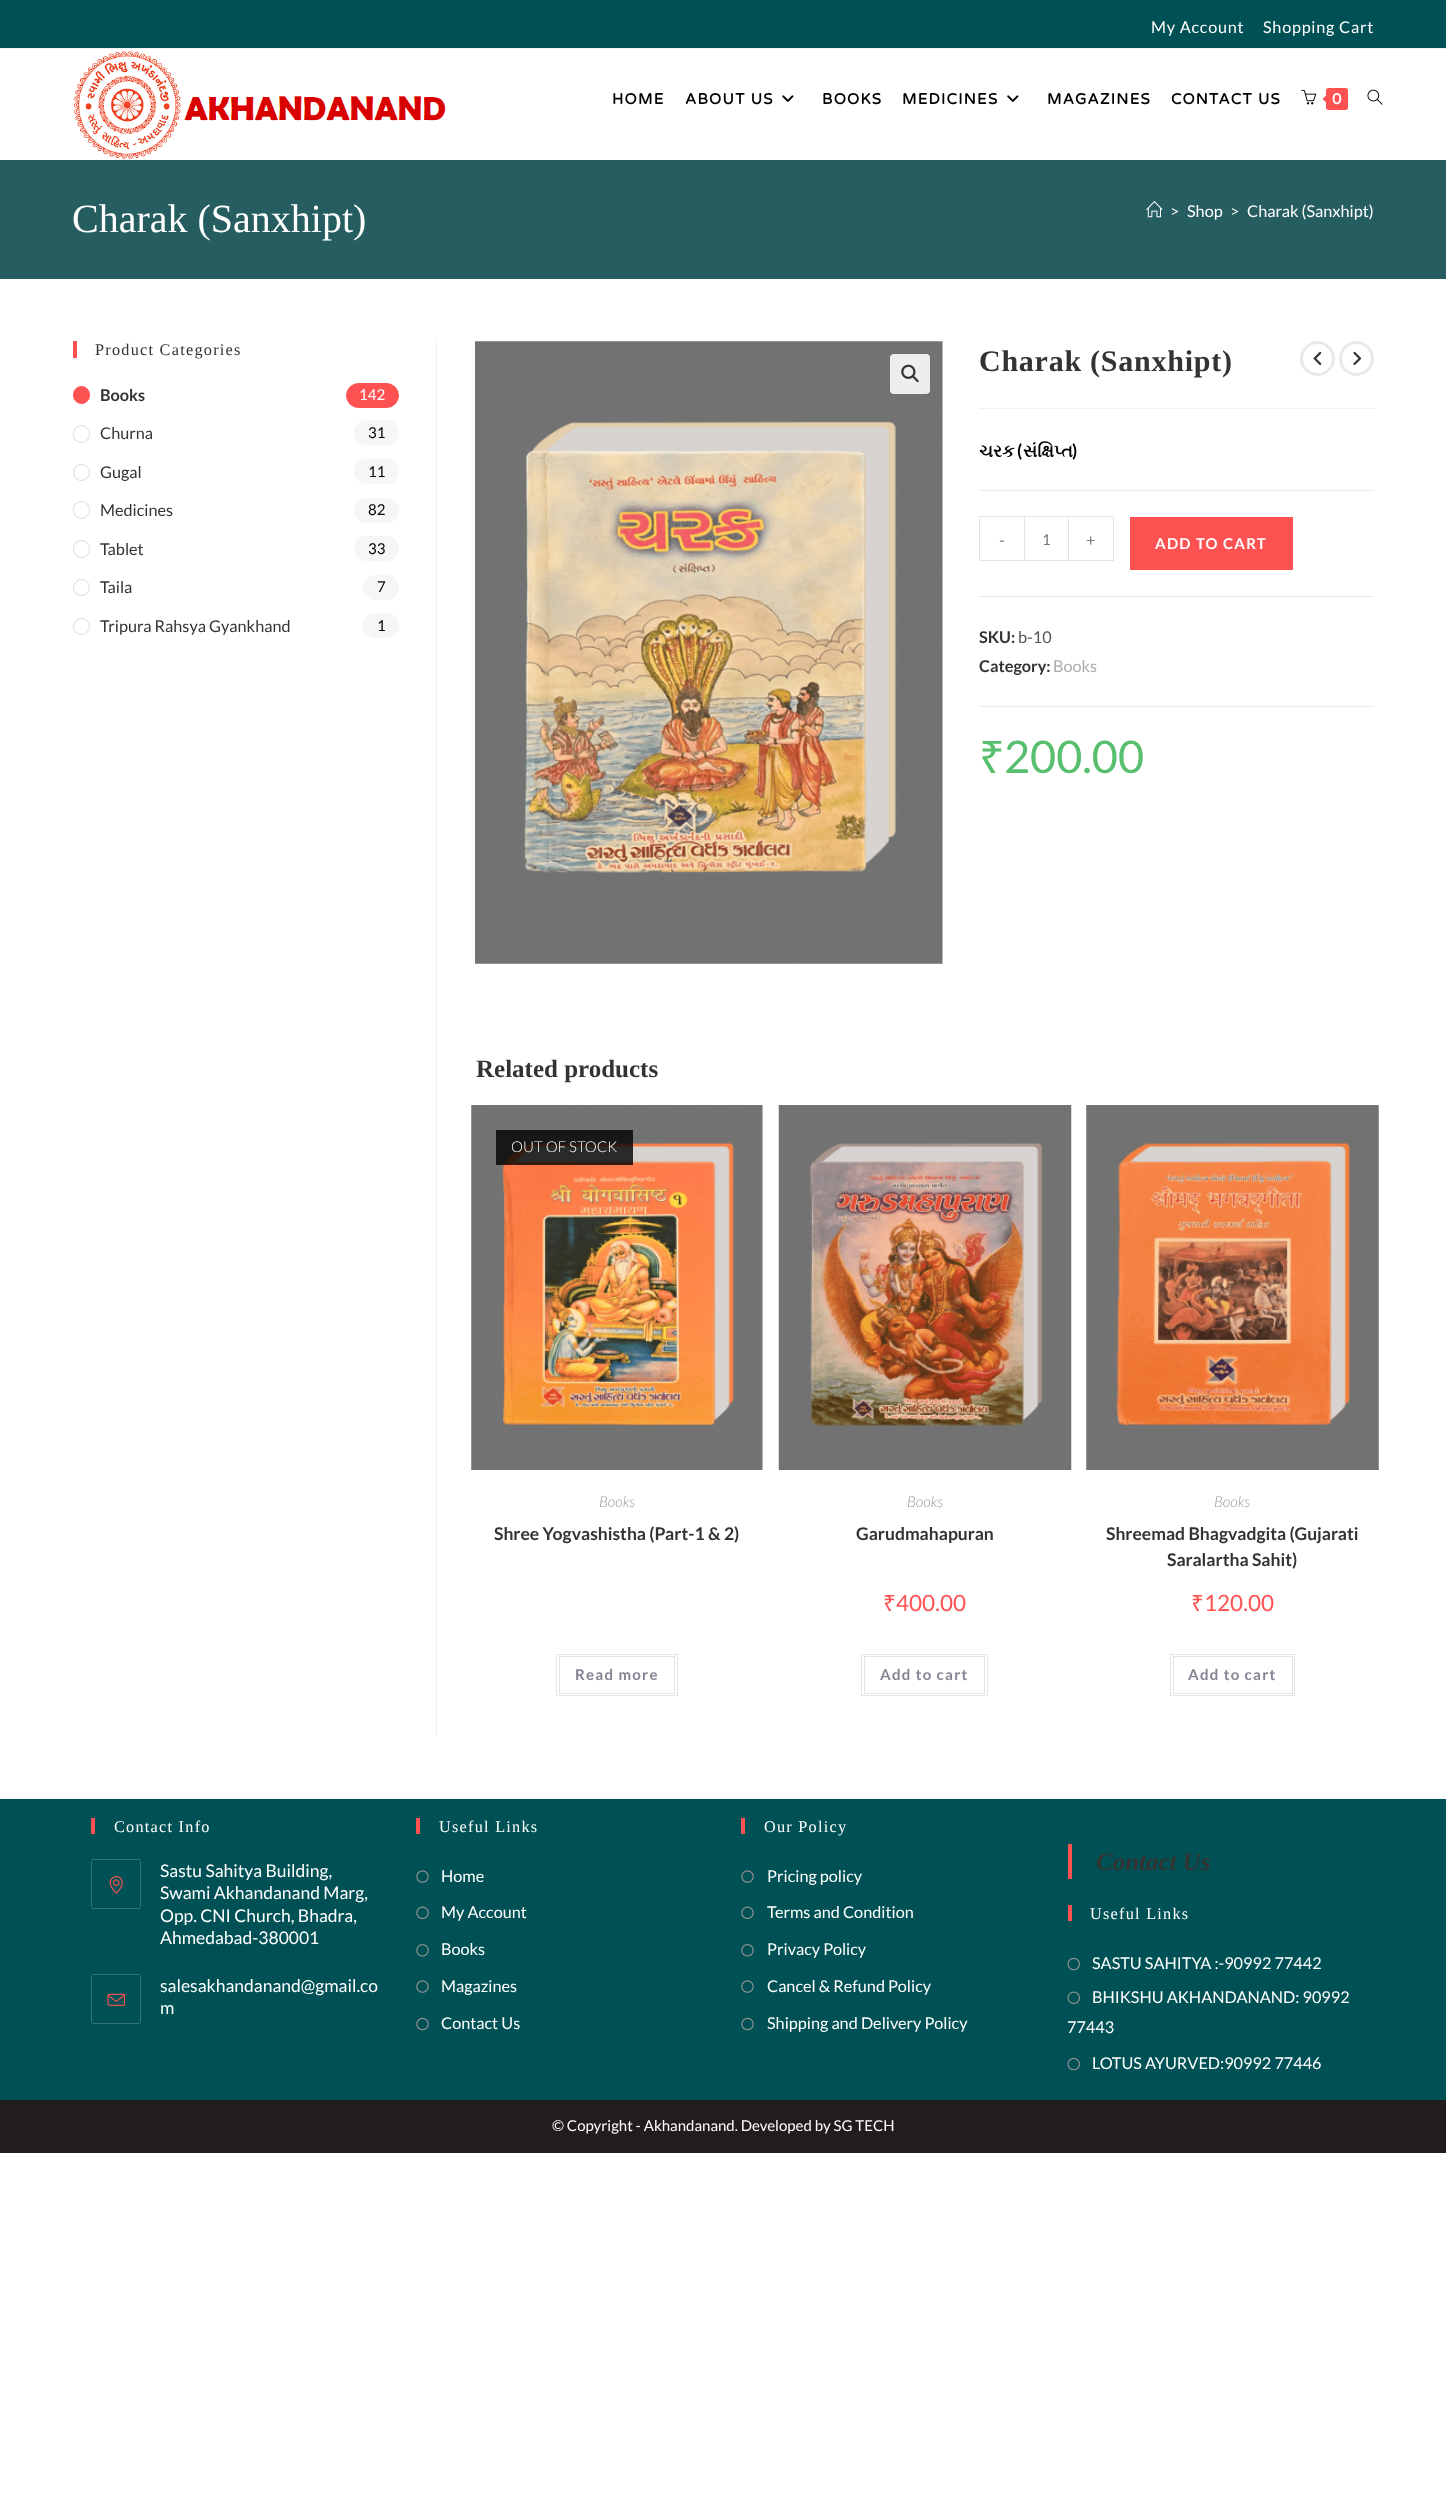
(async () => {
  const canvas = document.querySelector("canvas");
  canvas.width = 1446;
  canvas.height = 2498;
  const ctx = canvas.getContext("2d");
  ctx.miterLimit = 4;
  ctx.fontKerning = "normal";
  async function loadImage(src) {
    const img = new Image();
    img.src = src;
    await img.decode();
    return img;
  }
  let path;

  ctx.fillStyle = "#ffffff";
  ctx.fillRect(0, 0, 1446, 2498);
  ctx.fillStyle = "#005155";
  ctx.fillRect(0, 0, 1446, 48);
  ctx.fillStyle = "#f1f1f1";
  ctx.fillRect(0, 48, 1446, 1);
  ctx.drawImage(await loadImage("img/1.png"), 73, 51, 373, 109);
  ctx.drawImage(await loadImage("img/2.png"), 782, 95, 12, 7);
  ctx.drawImage(await loadImage("img/2.png"), 1007, 95, 12, 7);
  ctx.drawImage(await loadImage("img/3.png"), 1301, 89, 16, 16);
  ctx.fillStyle = "#fe5252";
  ctx.beginPath();
  ctx.roundRect(1326, 88, 22, 22, 2.5);
  ctx.fill();
  path = new Path2D("M1329 92.5V105L1322.5 99Z");
  ctx.fill(path);
  ctx.drawImage(await loadImage("img/4.png"), 1367, 89, 16, 16);
  ctx.fillStyle = "#255d60";
  ctx.fillRect(0, 160, 1446, 119);
  ctx.drawImage(await loadImage("img/5.png"), 1146, 201, 17, 17);
  ctx.fillStyle = "#fe5252";
  ctx.fillRect(73, 341, 4, 17);
  ctx.beginPath();
  ctx.roundRect(73.5, 386.5, 16, 17, 8);
  ctx.fill();
  ctx.strokeStyle = "#fe5252";
  ctx.stroke();
  ctx.beginPath();
  ctx.roundRect(346.5, 383.5, 52, 24, 12);
  ctx.fill();
  ctx.stroke();
  ctx.beginPath();
  ctx.roundRect(73.5, 425.5, 16, 17, 8);
  ctx.strokeStyle = "#d9d9d9";
  ctx.stroke();
  ctx.fillStyle = "#f6f6f6";
  ctx.beginPath();
  ctx.roundRect(354, 420, 45, 25, 12.5);
  ctx.fill();
  ctx.beginPath();
  ctx.arc(81.5, 472.5, 8, 0, Math.PI * 2);
  ctx.stroke();
  ctx.beginPath();
  ctx.roundRect(354, 459, 45, 25, 12.5);
  ctx.fill();
  ctx.beginPath();
  ctx.roundRect(73.5, 501.5, 16, 17, 8);
  ctx.stroke();
  ctx.beginPath();
  ctx.roundRect(354, 498, 45, 25, 12.5);
  ctx.fill();
  ctx.beginPath();
  ctx.roundRect(73.5, 540.5, 16, 17, 8);
  ctx.stroke();
  ctx.beginPath();
  ctx.roundRect(354, 536, 45, 25, 12.5);
  ctx.fill();
  ctx.beginPath();
  ctx.arc(81.5, 587.5, 8, 0, Math.PI * 2);
  ctx.stroke();
  ctx.beginPath();
  ctx.roundRect(363, 575, 36, 25, 12.5);
  ctx.fill();
  ctx.beginPath();
  ctx.arc(81.5, 626.5, 8, 0, Math.PI * 2);
  ctx.stroke();
  ctx.beginPath();
  ctx.roundRect(363, 613, 36, 25, 12.5);
  ctx.fill();
  ctx.fillStyle = "#f1f1f1";
  ctx.fillRect(436, 341, 1, 1395);
  ctx.drawImage(await loadImage("img/6.png"), 475, 341, 468, 623);
  ctx.fillStyle = "#eeeeee";
  ctx.beginPath();
  ctx.roundRect(890, 354, 40, 40, 4);
  ctx.fill();
  ctx.drawImage(await loadImage("img/7.png"), 901, 364, 18, 19);
  for (const [x, y, w, h, color] of [
    [979, 408, 395, 1, "#f1f1f1"],
    [979, 490, 395, 1, "#eaeaea"],
    [979, 596, 395, 1, "#eaeaea"],
    [979, 516, 45, 1, "#e4e4e4"],
    [979, 560, 45, 1, "#e4e4e4"],
    [979, 516, 1, 45, "#e4e4e4"],
  ]) {
    ctx.fillStyle = color;
    ctx.fillRect(x, y, w, h);
  }
  ctx.strokeStyle = "#e4e4e4";
  ctx.strokeRect(1024.5, 516.5, 44, 44);
  for (const [x, y, w, h, color] of [
    [1069, 516, 45, 1, "#e4e4e4"],
    [1113, 516, 1, 45, "#e4e4e4"],
    [1069, 560, 45, 1, "#e4e4e4"],
    [1130, 517, 163, 53, "#fe5252"],
    [979, 706, 395, 1, "#eaeaea"],
  ]) {
    ctx.fillStyle = color;
    ctx.fillRect(x, y, w, h);
  }
  ctx.beginPath();
  ctx.arc(1317.5, 358.5, 16, 0, Math.PI * 2);
  ctx.strokeStyle = "#e9e9e9";
  ctx.lineWidth = 3;
  ctx.stroke();
  ctx.drawImage(await loadImage("img/8.png"), 1313, 351, 9, 14);
  ctx.beginPath();
  ctx.arc(1356.5, 358.5, 16, 0, Math.PI * 2);
  ctx.stroke();
  ctx.drawImage(await loadImage("img/9.png"), 1353, 351, 9, 14);
  ctx.drawImage(await loadImage("img/10.png"), 471, 1105, 292, 365);
  ctx.fillStyle = "rgba(0, 0, 0, 0.8)";
  ctx.fillRect(496, 1130, 137, 35);
  ctx.strokeStyle = "#e4e4e4";
  ctx.lineWidth = 1;
  ctx.strokeRect(556.5, 1654.5, 121, 41);
  ctx.strokeRect(559.5, 1656.5, 115, 37);
  ctx.drawImage(await loadImage("img/11.png"), 778, 1105, 294, 365);
  ctx.strokeRect(861.5, 1654.5, 126, 41);
  ctx.strokeRect(864.5, 1656.5, 120, 37);
  ctx.drawImage(await loadImage("img/12.png"), 1086, 1105, 293, 365);
  ctx.strokeRect(1170.5, 1654.5, 124, 41);
  ctx.strokeRect(1173.5, 1656.5, 119, 37);
  ctx.fillStyle = "#005155";
  ctx.fillRect(0, 1799, 1446, 301);
  ctx.fillStyle = "#fe5252";
  ctx.fillRect(91, 1818, 4, 16);
  ctx.beginPath();
  ctx.roundRect(91.5, 1859.5, 49, 49, 2);
  ctx.strokeStyle = "#337477";
  ctx.stroke();
  ctx.drawImage(await loadImage("img/13.png"), 109, 1876, 14, 18);
  ctx.beginPath();
  ctx.roundRect(91.5, 1974.5, 49, 49, 2);
  ctx.stroke();
  ctx.drawImage(await loadImage("img/14.png"), 107, 1993, 18, 13);
  ctx.fillRect(416, 1818, 4, 16);
  ctx.drawImage(await loadImage("img/15.png"), 416, 1870, 13, 13);
  ctx.drawImage(await loadImage("img/16.png"), 416, 1906, 13, 14);
  ctx.drawImage(await loadImage("img/17.png"), 416, 1944, 13, 13);
  ctx.drawImage(await loadImage("img/15.png"), 416, 1980, 13, 13);
  ctx.drawImage(await loadImage("img/18.png"), 416, 2017, 13, 14);
  ctx.fillRect(741, 1818, 4, 16);
  ctx.drawImage(await loadImage("img/15.png"), 741, 1870, 13, 13);
  ctx.drawImage(await loadImage("img/16.png"), 741, 1906, 13, 14);
  ctx.drawImage(await loadImage("img/17.png"), 741, 1944, 13, 13);
  ctx.drawImage(await loadImage("img/15.png"), 741, 1980, 13, 13);
  ctx.drawImage(await loadImage("img/18.png"), 741, 2017, 13, 14);
  ctx.fillRect(1068, 1844, 4, 35);
  ctx.fillRect(1068, 1905, 4, 16);
  ctx.drawImage(await loadImage("img/19.png"), 1067, 1957, 13, 14);
  ctx.drawImage(await loadImage("img/20.png"), 1067, 1991, 13, 14);
  ctx.drawImage(await loadImage("img/19.png"), 1067, 2057, 13, 14);
  ctx.fillStyle = "#221d1d";
  ctx.fillRect(0, 2100, 1446, 53);
  ctx.letterSpacing = "0.75px";
  ctx.font = "16.25px Lato";
  ctx.fillStyle = "#ffffff";
  ctx.fillText("My Account", 1151, 33);
  ctx.fillText("Shopping Cart", 1263, 33);
  ctx.letterSpacing = "1.25px";
  ctx.font = "bold 15px Varela Round";
  ctx.fillStyle = "#000000";
  for (const [text, x, y] of [
    ["HOME", 612, 104],
    ["ABOUT US", 685, 104],
    ["BOOKS", 822, 104],
    ["MEDICINES", 902, 104],
    ["MAGAZINES", 1047, 104],
    ["CONTACT US", 1171, 104],
  ]) {
    ctx.fillText(text, x, y);
  }
  ctx.letterSpacing = "0px";
  ctx.fillStyle = "#ffffff";
  ctx.fillText("0", 1332, 104);
  ctx.font = "40px Liberation Serif";
  ctx.fillText("Charak (Sanxhipt)", 72, 232);
  ctx.font = "16.25px Lato";
  ctx.fillStyle = "#efefef";
  ctx.fillText(">", 1170, 217);
  ctx.fillStyle = "#ffffff";
  ctx.fillText("Shop", 1187, 217);
  ctx.fillStyle = "#efefef";
  ctx.fillText(">", 1230, 217);
  ctx.fillStyle = "#ffffff";
  ctx.fillText("Charak (Sanxhipt)", 1247, 217);
  ctx.letterSpacing = "1.25px";
  ctx.font = "16.25px Liberation Serif";
  ctx.fillStyle = "#333333";
  ctx.fillText("Product Categories", 95, 355);
  ctx.letterSpacing = "0px";
  ctx.font = "bold 16.25px Lato";
  ctx.fillText("Books", 100, 401);
  ctx.font = "15px Lato";
  ctx.fillStyle = "#ffffff";
  ctx.fillText("142", 359, 400);
  ctx.font = "16.25px Lato";
  ctx.fillStyle = "#333333";
  ctx.fillText("Churna", 100, 439);
  ctx.font = "15px Lato";
  ctx.fillStyle = "#000000";
  ctx.fillText("31", 368, 438);
  ctx.font = "16.25px Lato";
  ctx.fillStyle = "#333333";
  ctx.fillText("Gugal", 100, 478);
  ctx.font = "15px Lato";
  ctx.fillStyle = "#000000";
  ctx.fillText("11", 368, 477);
  ctx.font = "16.25px Lato";
  ctx.fillStyle = "#333333";
  ctx.fillText("Medicines", 100, 516);
  ctx.font = "15px Lato";
  ctx.fillStyle = "#000000";
  ctx.fillText("82", 368, 515);
  ctx.font = "16.25px Lato";
  ctx.fillStyle = "#333333";
  ctx.fillText("Tablet", 100, 555);
  ctx.font = "15px Lato";
  ctx.fillStyle = "#000000";
  ctx.fillText("33", 368, 554);
  ctx.font = "16.25px Lato";
  ctx.fillStyle = "#333333";
  ctx.fillText("Taila", 100, 593);
  ctx.font = "15px Lato";
  ctx.fillStyle = "#000000";
  ctx.fillText("7", 377, 592);
  ctx.font = "16.25px Lato";
  ctx.fillStyle = "#333333";
  ctx.fillText("Tripura Rahsya Gyankhand", 100, 632);
  ctx.font = "15px Lato";
  ctx.fillStyle = "#000000";
  ctx.fillText("1", 377, 631);
  ctx.letterSpacing = "0.75px";
  ctx.font = "bold 30px Liberation Serif";
  ctx.fillStyle = "#333333";
  ctx.fillText("Charak (Sanxhipt)", 979, 371);
  ctx.letterSpacing = "0px";
  ctx.font = "bold 17.5px FreeSerif";
  ctx.fillStyle = "#000000";
  ctx.fillText("ચરક", 979, 457);
  ctx.font = "bold 17.5px Lato";
  ctx.fillText("(", 1017, 457);
  ctx.font = "bold 17.5px FreeSerif";
  ctx.fillText("સંક્ષિપ્ત", 1023, 457);
  ctx.font = "bold 17.5px Lato";
  ctx.fillText(")", 1072, 457);
  ctx.font = "16.25px Lato";
  ctx.fillStyle = "#777777";
  ctx.fillText("-", 999, 546);
  ctx.font = "15px Lato";
  ctx.fillText("1", 1042, 545);
  ctx.font = "16.25px Lato";
  ctx.fillText("+", 1086, 546);
  ctx.letterSpacing = "1.25px";
  ctx.font = "bold 15px Lato";
  ctx.fillStyle = "#ffffff";
  ctx.fillText("ADD TO CART", 1155, 549);
  ctx.letterSpacing = "0px";
  ctx.font = "bold 16.25px Lato";
  ctx.fillStyle = "#333333";
  ctx.fillText("SKU:", 979, 643);
  ctx.font = "16.25px Lato";
  ctx.fillStyle = "#555555";
  ctx.fillText("b-10", 1018, 643);
  ctx.font = "bold 16.25px Lato";
  ctx.fillStyle = "#333333";
  ctx.fillText("Category:", 979, 672);
  ctx.font = "16.25px Lato";
  ctx.fillStyle = "#ababab";
  ctx.fillText("Books", 1053, 672);
  ctx.font = "45px Noto Sans";
  ctx.fillStyle = "#57bf6d";
  ctx.fillText("₹", 979, 773);
  ctx.font = "45px Lato";
  ctx.fillText("200.00", 1004, 773);
  ctx.font = "bold 25px Liberation Serif";
  ctx.fillStyle = "#333333";
  ctx.fillText("Related products", 476, 1077);
  ctx.font = "300 15px Lato";
  ctx.fillStyle = "#ffffff";
  ctx.fillText("OUT OF STOCK", 511, 1152);
  ctx.font = "italic 300 15px Lato";
  ctx.fillStyle = "#999999";
  ctx.fillText("Books", 599, 1507);
  ctx.font = "bold 17.5px Lato";
  ctx.fillStyle = "#333333";
  ctx.fillText("Shree Yogvashistha (Part-1 & 2)", 494, 1540);
  ctx.letterSpacing = "1.25px";
  ctx.font = "bold 15px Lato";
  ctx.fillStyle = "#848494";
  ctx.fillText("Read more", 575, 1680);
  ctx.letterSpacing = "0px";
  ctx.font = "italic 300 15px Lato";
  ctx.fillStyle = "#999999";
  ctx.fillText("Books", 907, 1507);
  ctx.font = "bold 17.5px Lato";
  ctx.fillStyle = "#333333";
  ctx.fillText("Garudmahapuran", 856, 1540);
  ctx.font = "22.5px Noto Sans";
  ctx.fillStyle = "#fe5252";
  ctx.fillText("₹", 883, 1611);
  ctx.font = "22.5px Lato";
  ctx.fillText("400.00", 896, 1611);
  ctx.letterSpacing = "1.25px";
  ctx.font = "bold 15px Lato";
  ctx.fillStyle = "#848494";
  ctx.fillText("Add to cart", 880, 1680);
  ctx.letterSpacing = "0px";
  ctx.font = "italic 300 15px Lato";
  ctx.fillStyle = "#999999";
  ctx.fillText("Books", 1214, 1507);
  ctx.font = "bold 17.5px Lato";
  ctx.fillStyle = "#333333";
  ctx.fillText("Shreemad Bhagvadgita (Gujarati", 1106, 1540);
  ctx.fillText("Saralartha Sahit)", 1167, 1566);
  ctx.font = "22.5px Noto Sans";
  ctx.fillStyle = "#fe5252";
  ctx.fillText("₹", 1191, 1611);
  ctx.font = "22.5px Lato";
  ctx.fillText("120.00", 1204, 1611);
  ctx.letterSpacing = "1.25px";
  ctx.font = "bold 15px Lato";
  ctx.fillStyle = "#848494";
  ctx.fillText("Add to cart", 1188, 1680);
  ctx.font = "16.25px Liberation Serif";
  ctx.fillStyle = "#ffffff";
  ctx.fillText("Contact Info", 114, 1832);
  ctx.letterSpacing = "0px";
  ctx.font = "17.5px Lato";
  for (const [text, x, y] of [
    ["Sastu Sahitya Building,", 160, 1877],
    ["Swami Akhandanand Marg,", 160, 1899],
    ["Opp. CNI Church, Bhadra,", 160, 1922],
    ["Ahmedabad-380001", 160, 1944],
    ["salesakhandanand@gmail.co", 160, 1992],
    ["m", 160, 2014],
  ]) {
    ctx.fillText(text, x, y);
  }
  ctx.letterSpacing = "1.25px";
  ctx.font = "16.25px Liberation Serif";
  ctx.fillText("Useful Links", 439, 1832);
  ctx.letterSpacing = "0px";
  ctx.font = "16.25px Lato";
  for (const [text, x, y] of [
    ["Home", 441, 1882],
    ["My Account", 441, 1918],
    ["Books", 441, 1955],
    ["Magazines", 441, 1992],
    ["Contact Us", 441, 2029],
  ]) {
    ctx.fillText(text, x, y);
  }
  ctx.letterSpacing = "1.25px";
  ctx.font = "16.25px Liberation Serif";
  ctx.fillText("Our Policy", 764, 1832);
  ctx.letterSpacing = "0px";
  ctx.font = "16.25px Lato";
  for (const [text, x, y] of [
    ["Pricing policy", 767, 1882],
    ["Terms and Condition", 767, 1918],
    ["Privacy Policy", 767, 1955],
    ["Cancel & Refund Policy", 767, 1992],
    ["Shipping and Delivery Policy", 767, 2029],
  ]) {
    ctx.fillText(text, x, y);
  }
  ctx.font = "italic bold 25px Liberation Serif";
  ctx.fillStyle = "#333333";
  ctx.fillText("Contact Us", 1096, 1870);
  ctx.letterSpacing = "1.25px";
  ctx.font = "16.25px Liberation Serif";
  ctx.fillStyle = "#ffffff";
  ctx.fillText("Useful Links", 1090, 1919);
  ctx.letterSpacing = "0px";
  ctx.font = "16.25px Lato";
  for (const [text, x, y] of [
    ["SASTU SAHITYA :-90992 77442", 1092, 1969],
    ["BHIKSHU AKHANDANAND: 90992", 1092, 2003],
    ["77443", 1067, 2033],
    ["LOTUS AYURVED:90992 77446", 1092, 2069],
  ]) {
    ctx.fillText(text, x, y);
  }
  ctx.font = "15px Lato";
  ctx.fillText("© Copyright - Akhandanand. Developed by SG TECH", 552, 2131);
})();
